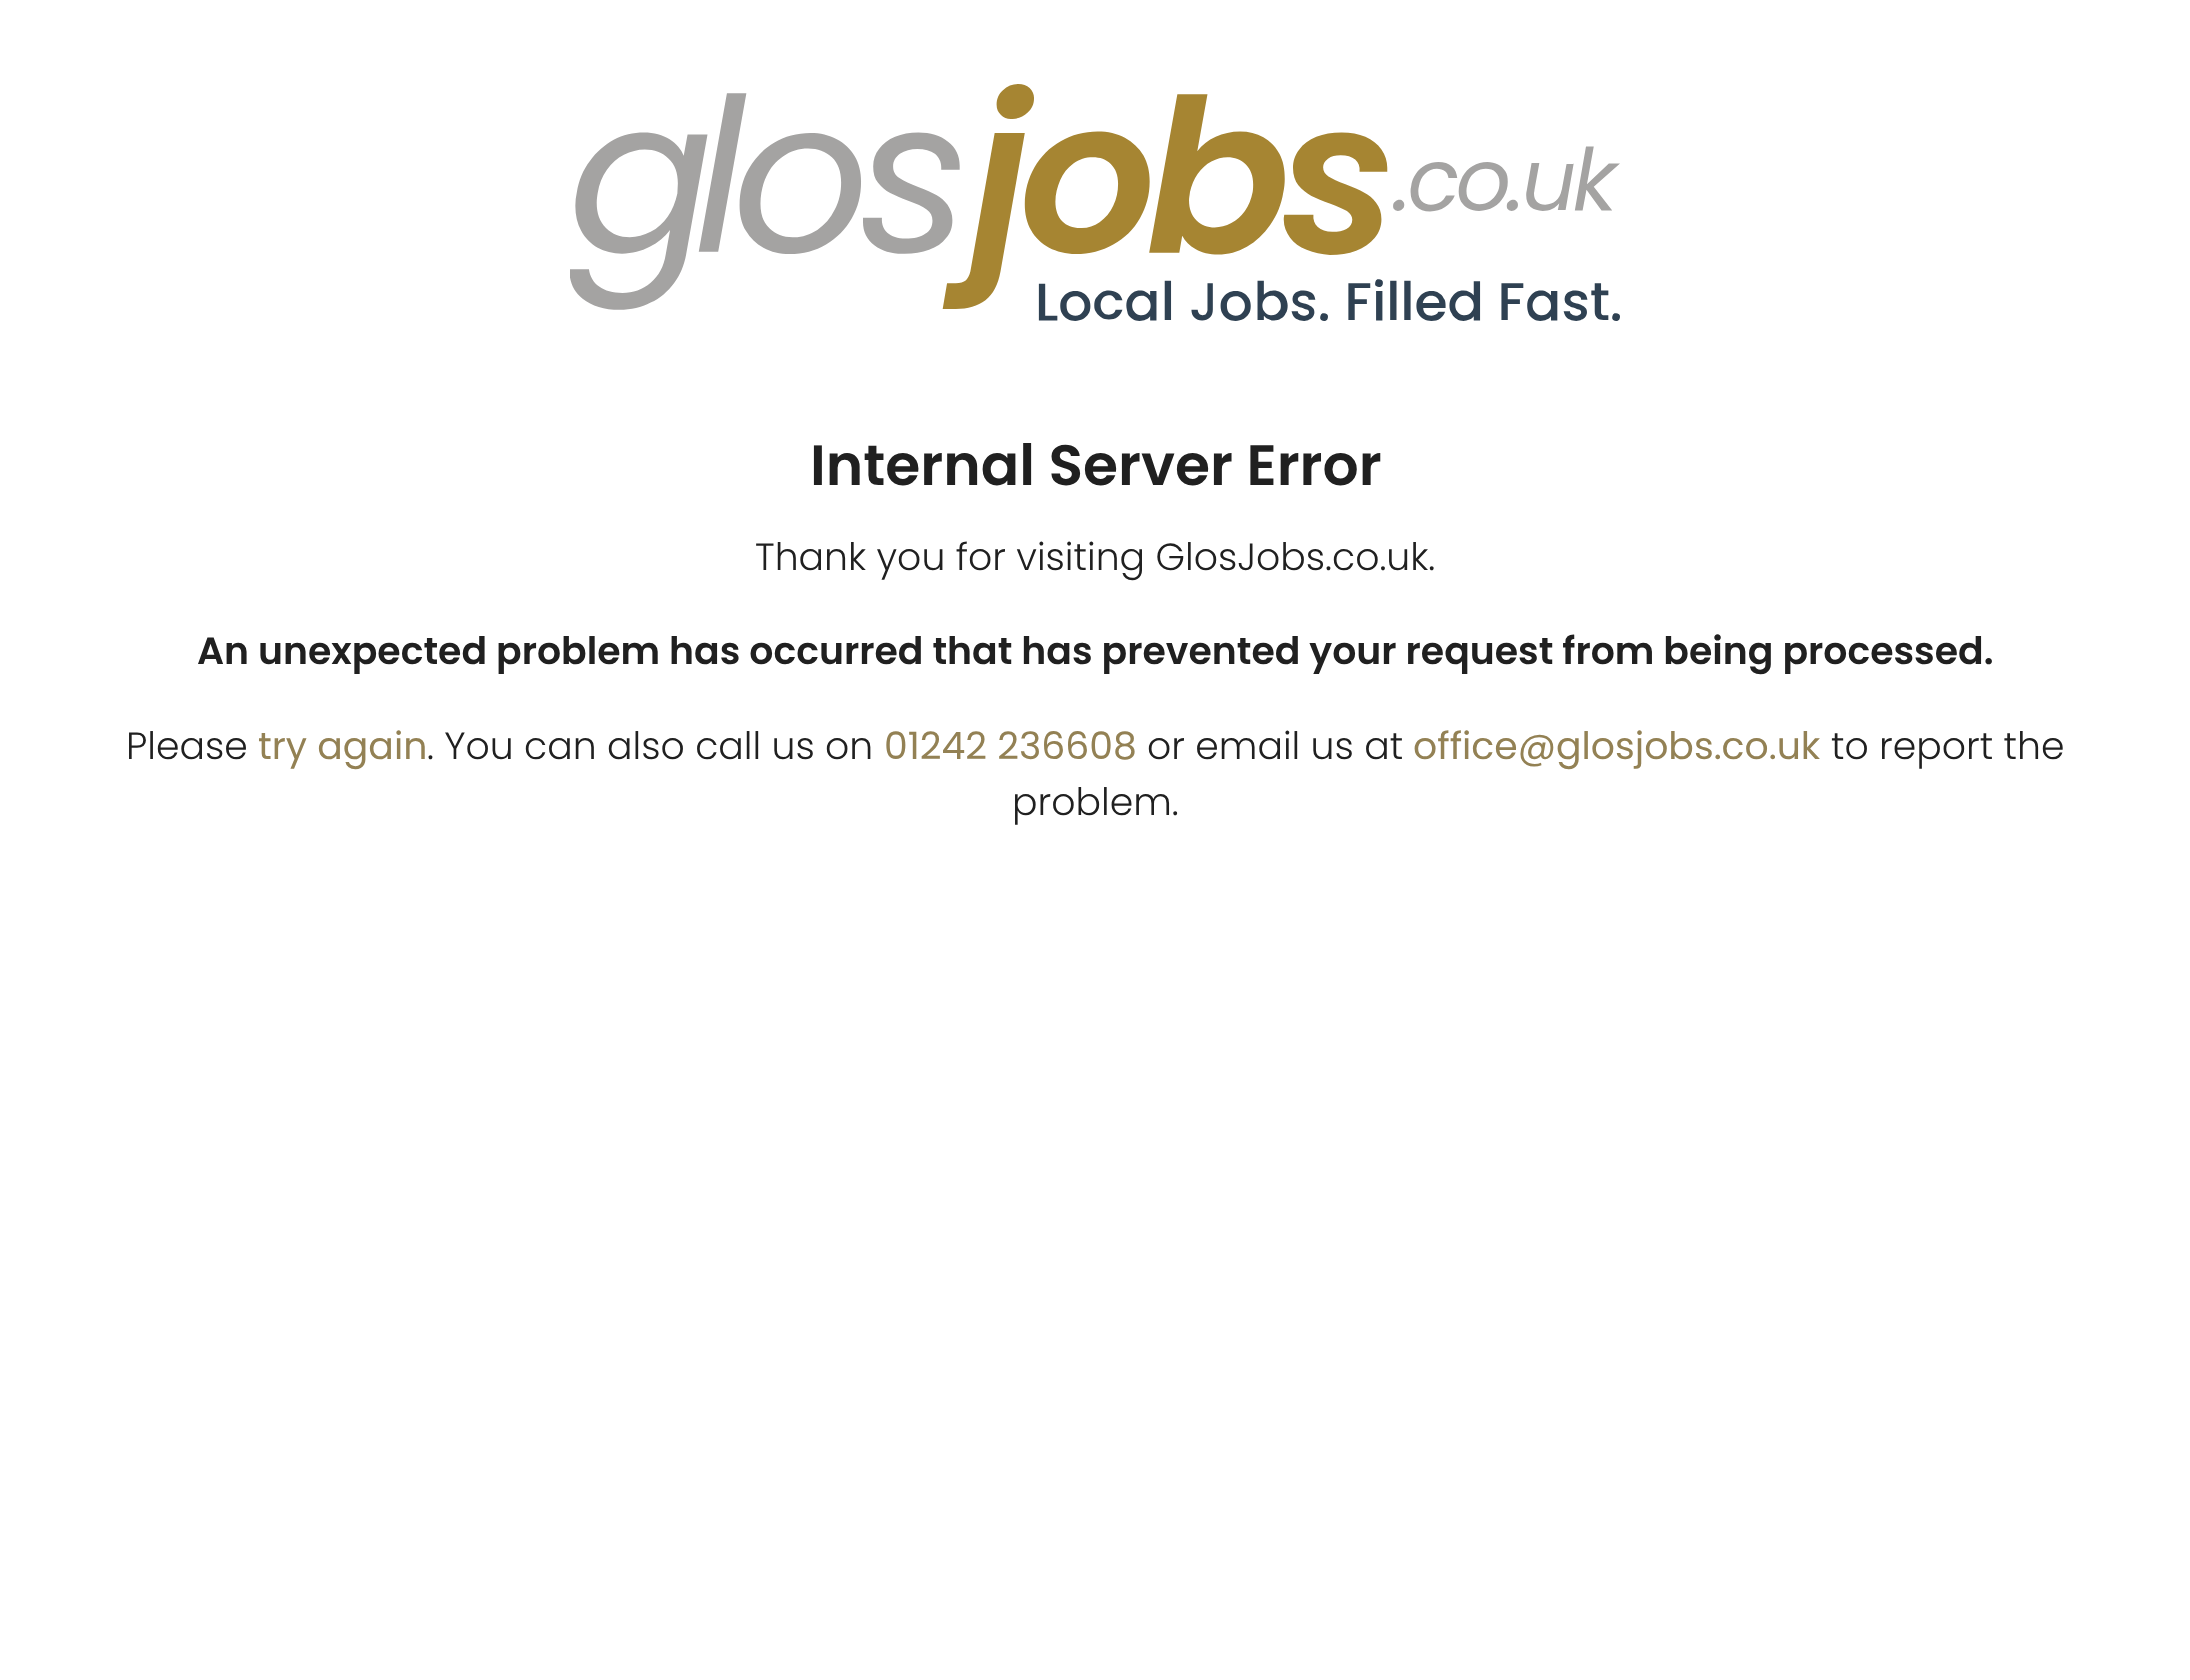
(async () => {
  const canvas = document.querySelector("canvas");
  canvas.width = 2190;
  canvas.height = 1680;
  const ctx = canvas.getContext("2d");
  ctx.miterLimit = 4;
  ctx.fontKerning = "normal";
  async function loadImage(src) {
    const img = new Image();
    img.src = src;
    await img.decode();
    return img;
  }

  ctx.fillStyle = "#ffffff";
  ctx.fillRect(0, 0, 2190, 1680);
  ctx.drawImage(await loadImage("img/1.png"), 570, 84, 1050, 237);
  ctx.font = "600 56.75px Poppins";
  ctx.fillStyle = "#202020";
  ctx.fillText("Internal Server Error", 810, 485);
  ctx.font = "300 37.8px Poppins";
  ctx.fillText("Thank you for visiting GlosJobs.co.uk.", 755, 570);
  ctx.font = "600 37.8px Poppins";
  ctx.fillText("An unexpected problem has occurred that has prevented your request from being processed.", 197, 664);
  ctx.font = "300 37.8px Poppins";
  ctx.fillText("Please", 126, 759);
  ctx.font = "37.8px Poppins";
  ctx.fillStyle = "#938154";
  ctx.fillText("try again", 258, 759);
  ctx.font = "300 37.8px Poppins";
  ctx.fillStyle = "#202020";
  ctx.fillText(". You can also call us on", 427, 759);
  ctx.font = "37.8px Poppins";
  ctx.fillStyle = "#938154";
  ctx.fillText("01242 236608", 884, 759);
  ctx.font = "300 37.8px Poppins";
  ctx.fillStyle = "#202020";
  ctx.fillText("or email us at", 1147, 759);
  ctx.font = "37.8px Poppins";
  ctx.fillStyle = "#938154";
  ctx.fillText("office@glosjobs.co.uk", 1413, 759);
  ctx.font = "300 37.8px Poppins";
  ctx.fillStyle = "#202020";
  ctx.fillText("to report the", 1831, 759);
  ctx.fillText("problem.", 1012, 815);
})();
